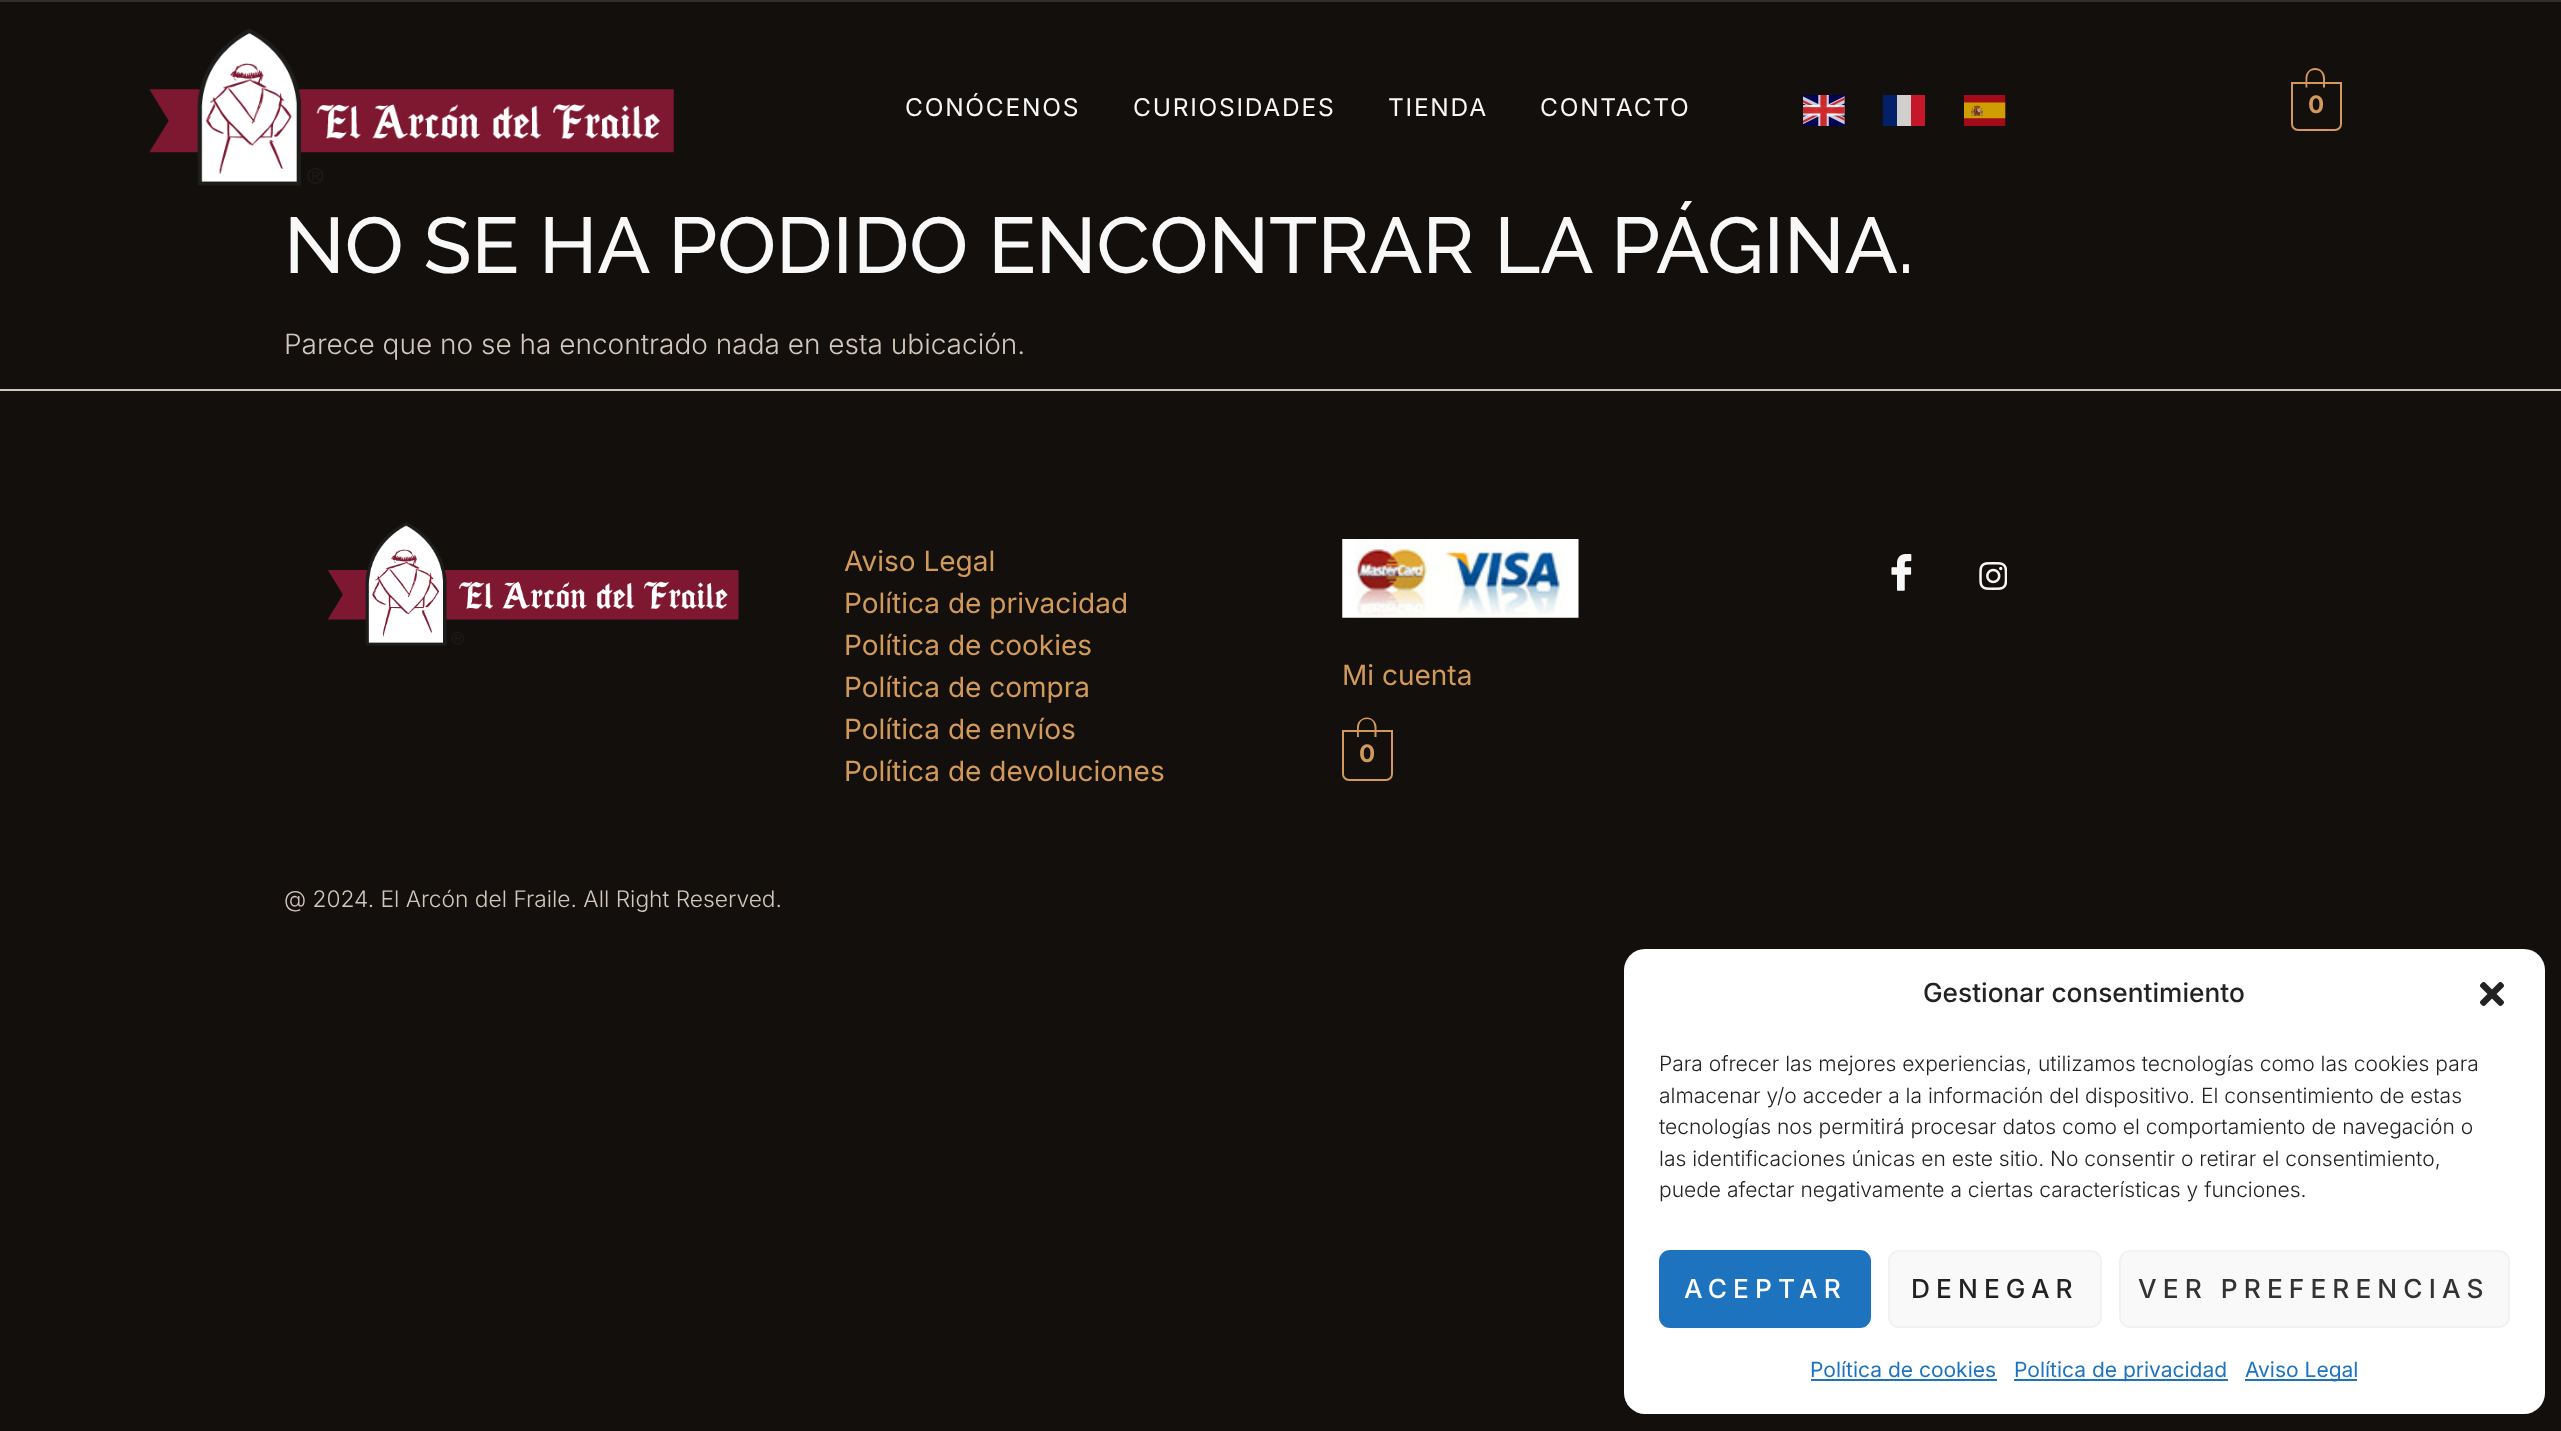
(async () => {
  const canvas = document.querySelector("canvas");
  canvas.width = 2561;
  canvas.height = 1431;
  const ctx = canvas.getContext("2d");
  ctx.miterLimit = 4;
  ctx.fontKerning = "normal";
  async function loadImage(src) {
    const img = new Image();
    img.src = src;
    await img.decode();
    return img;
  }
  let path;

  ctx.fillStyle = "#130f0c";
  ctx.fillRect(0, 0, 2561, 1431);
  ctx.fillStyle = "#332e2a";
  ctx.fillRect(0, 0, 2561, 2);
  ctx.drawImage(await loadImage("img/1.png"), 149, 28, 525, 158);
  ctx.drawImage(await loadImage("img/2.png"), 1803, 95, 42, 31);
  for (const [x, y, w, h, color] of [
    [1883, 95, 14, 31, "#042168"],
    [1897, 95, 14, 31, "#d0cfce"],
    [1911, 95, 14, 31, "#c61629"],
  ]) {
    ctx.fillStyle = color;
    ctx.fillRect(x, y, w, h);
  }
  ctx.drawImage(await loadImage("img/3.png"), 1964, 95, 42, 31);
  ctx.beginPath();
  ctx.roundRect(2292, 83, 49, 47, [0, 0, 6, 6]);
  ctx.strokeStyle = "#d29a5a";
  ctx.lineWidth = 2;
  ctx.stroke();
  ctx.fillStyle = "#d29a5a";
  path = new Path2D("M2315 68C2320.5 68 2325 72.5 2325 78V87.5H2305.5V78C2305.5 72.5 2310 68 2315 68ZM2315 70C2325 70 2323 81 2323 87.5H2307.5C2307.5 81 2305.5 70 2315 70Z");
  ctx.fill(path, "evenodd");
  ctx.fillStyle = "#d1c8bb";
  ctx.fillRect(0, 389, 2561, 2);
  ctx.drawImage(await loadImage("img/4.png"), 327, 522, 412, 124);
  ctx.drawImage(await loadImage("img/5.png"), 1891, 554, 21, 37);
  ctx.drawImage(await loadImage("img/6.png"), 1979, 562, 28, 28);
  ctx.drawImage(await loadImage("img/7.png"), 1342, 539, 237, 79);
  ctx.beginPath();
  ctx.roundRect(1343, 731, 49, 49, [0, 0, 6, 6]);
  ctx.stroke();
  ctx.fillStyle = "#d29a5a";
  path = new Path2D("M1367 717.5C1372 717.5 1376.5 722 1376.5 727V737H1357V727C1357 722 1361.5 717.5 1367 717.5ZM1367 719C1376.5 719 1374.5 730.5 1374.5 737H1359C1359 730.5 1357 719 1367 719Z");
  ctx.fill(path, "evenodd");
  ctx.fillStyle = "#ffffff";
  ctx.beginPath();
  ctx.roundRect(1624, 949, 921, 465, 21);
  ctx.fill();
  ctx.drawImage(await loadImage("img/8.png"), 2480, 982, 24, 24);
  ctx.fillStyle = "#1e73be";
  ctx.beginPath();
  ctx.roundRect(1660, 1251, 210, 76, 10);
  ctx.fill();
  ctx.strokeStyle = "#1e73be";
  ctx.stroke();
  ctx.fillStyle = "#f9f9f9";
  ctx.beginPath();
  ctx.roundRect(1889, 1251, 212, 76, 10);
  ctx.fill();
  ctx.strokeStyle = "#f2f2f2";
  ctx.stroke();
  ctx.beginPath();
  ctx.roundRect(2120, 1251, 389, 76, 10);
  ctx.fill();
  ctx.stroke();
  for (const [x, y, w, h, color] of [
    [1811, 1379, 186, 2, "#1e73be"],
    [2014, 1379, 214, 2, "#1e73be"],
    [2245, 1379, 112, 2, "#1e73be"],
  ]) {
    ctx.fillStyle = color;
    ctx.fillRect(x, y, w, h);
  }
  ctx.letterSpacing = "1.75px";
  ctx.font = "24.5px Inter";
  ctx.fillStyle = "#f8f8f8";
  for (const [text, x, y] of [
    ["CONÓCENOS", 905, 116],
    ["CURIOSIDADES", 1133, 116],
    ["TIENDA", 1388, 116],
    ["CONTACTO", 1540, 116],
  ]) {
    ctx.fillText(text, x, y);
  }
  ctx.letterSpacing = "0px";
  ctx.font = "bold 24px Inter";
  ctx.fillStyle = "#d29a5a";
  ctx.fillText("0", 2308, 113);
  ctx.font = "500 78.75px Raleway";
  ctx.fillStyle = "#f8f8f8";
  ctx.fillText("NO SE HA PODIDO ENCONTRAR LA PÁGINA.", 284, 273);
  ctx.font = "300 28px Inter";
  ctx.fillStyle = "#d1c8bb";
  ctx.fillText("Parece que no se ha encontrado nada en esta ubicación.", 284, 354);
  ctx.font = "28px Inter";
  ctx.fillStyle = "#d29a5a";
  for (const [text, x, y] of [
    ["Aviso Legal", 844, 571],
    ["Política de privacidad", 844, 613],
    ["Política de cookies", 844, 655],
    ["Política de compra", 844, 697],
    ["Política de envíos", 844, 739],
    ["Política de devoluciones", 844, 781],
    ["Mi cuenta", 1342, 685],
  ]) {
    ctx.fillText(text, x, y);
  }
  ctx.font = "bold 24px Inter";
  ctx.fillText("0", 1359, 762);
  ctx.font = "300 22.75px Inter";
  ctx.fillStyle = "#d1c8bb";
  ctx.fillText("@ 2024. El Arcón del Fraile. All Right Reserved.", 284, 907);
  ctx.font = "500 26.25px Inter";
  ctx.fillStyle = "#222222";
  ctx.fillText("Gestionar consentimiento", 1923, 1002);
  ctx.font = "300 21px Inter";
  for (const [text, x, y] of [
    ["Para ofrecer las mejores experiencias, utilizamos tecnologías como las cookies para", 1659, 1071],
    ["almacenar y/o acceder a la información del dispositivo. El consentimiento de estas", 1659, 1103],
    ["tecnologías nos permitirá procesar datos como el comportamiento de navegación o", 1659, 1134],
    ["las identificaciones únicas en este sitio. No consentir o retirar el consentimiento,", 1659, 1166],
    ["puede afectar negativamente a ciertas características y funciones.", 1659, 1197],
  ]) {
    ctx.fillText(text, x, y);
  }
  ctx.letterSpacing = "6.1px";
  ctx.font = "500 26.25px Inter";
  ctx.fillStyle = "#ffffff";
  ctx.fillText("ACEPTAR", 1684, 1298);
  ctx.fillStyle = "#222222";
  ctx.fillText("DENEGAR", 1911, 1298);
  ctx.fillStyle = "#333333";
  ctx.fillText("VER PREFERENCIAS", 2138, 1298);
  ctx.letterSpacing = "0px";
  ctx.font = "21px Inter";
  ctx.fillStyle = "#1e73be";
  for (const [text, x, y] of [
    ["Política de cookies", 1810, 1377],
    ["Política de privacidad", 2014, 1377],
    ["Aviso Legal", 2245, 1377],
  ]) {
    ctx.fillText(text, x, y);
  }
})();
